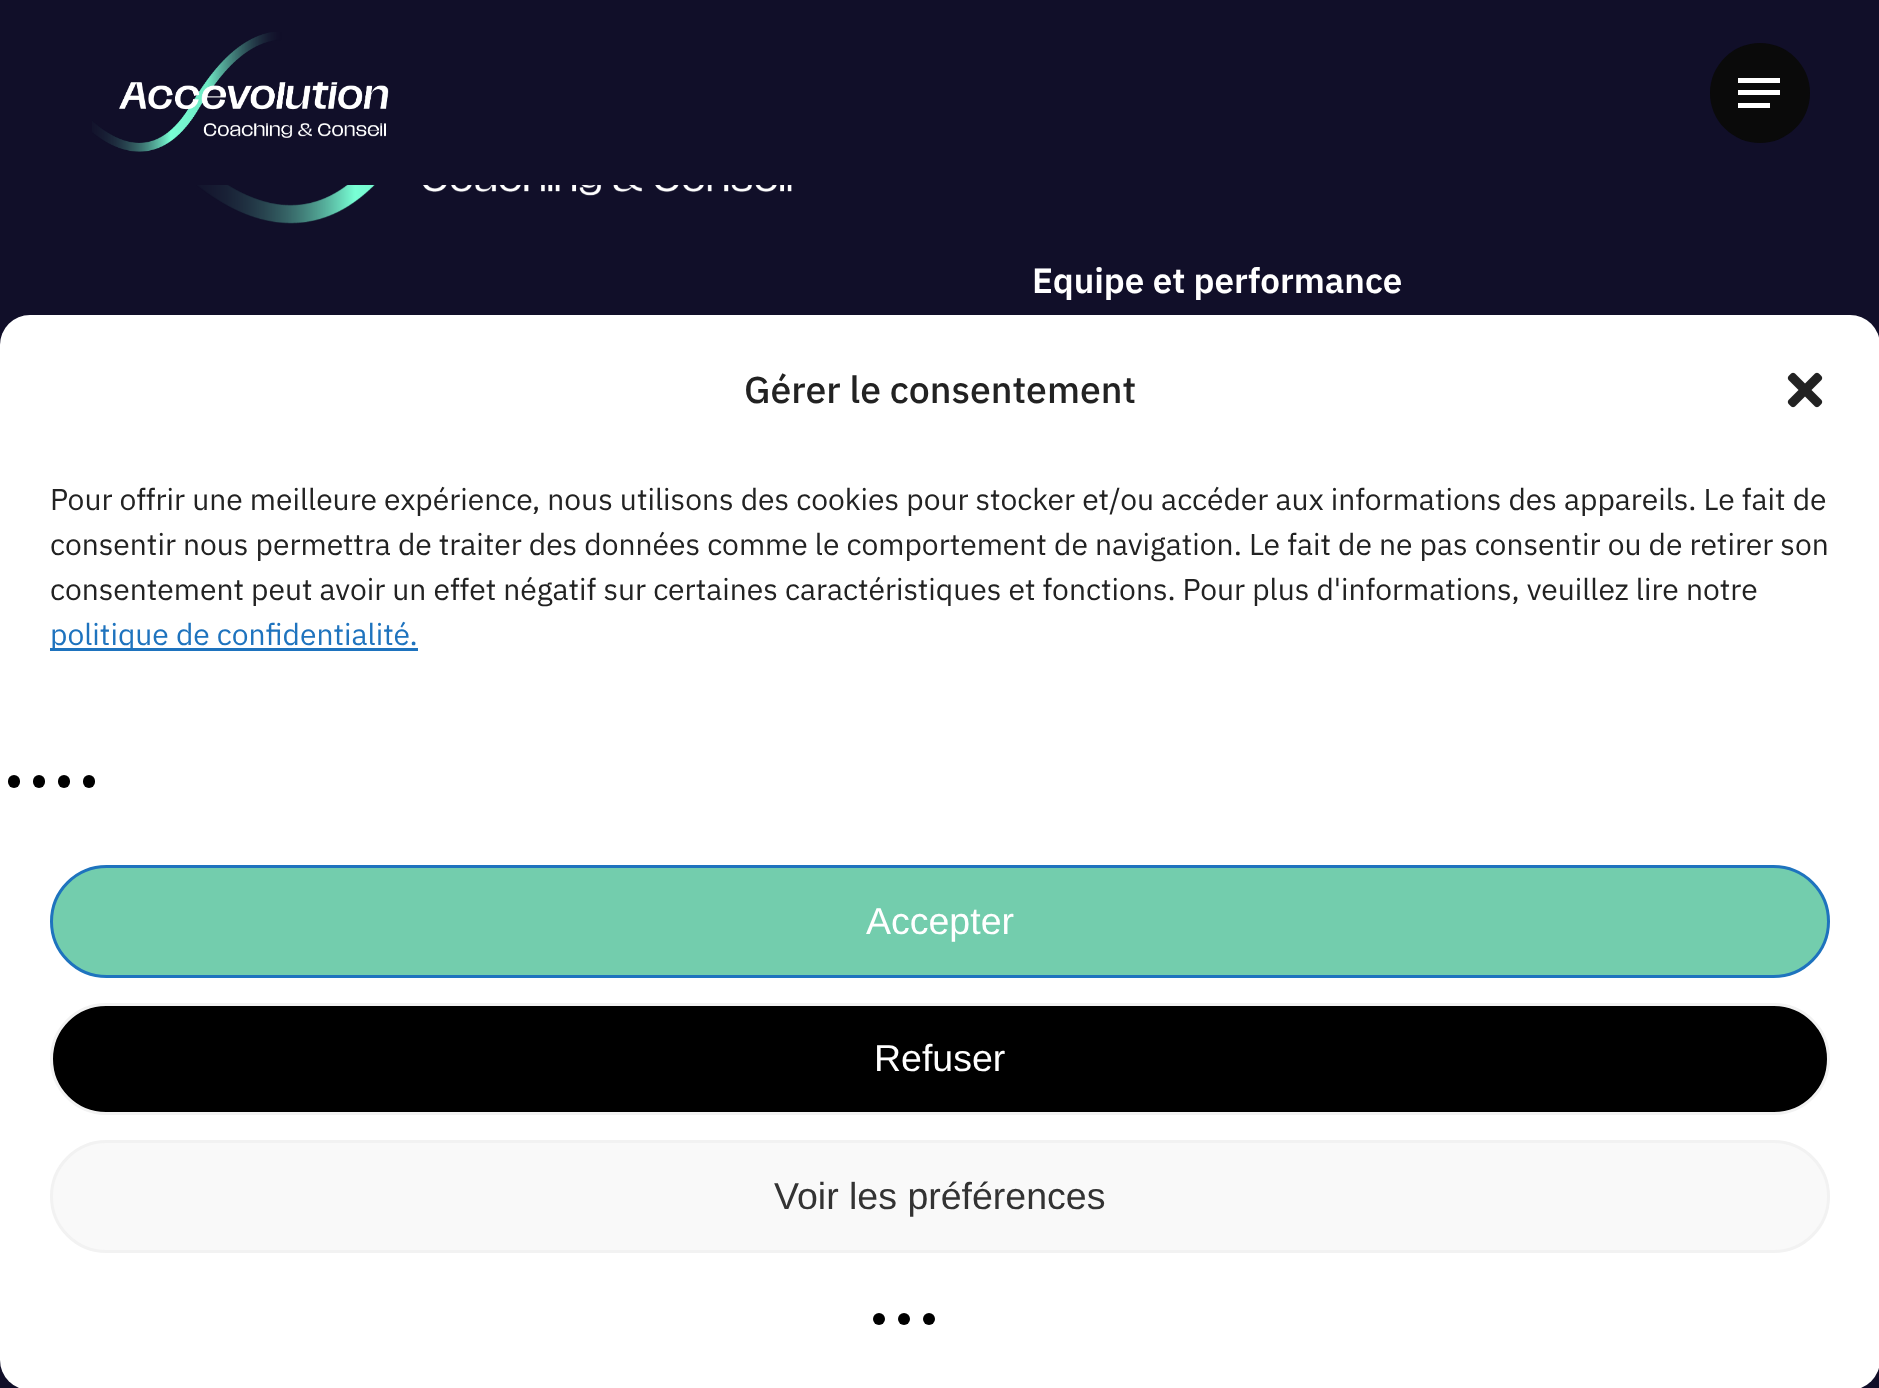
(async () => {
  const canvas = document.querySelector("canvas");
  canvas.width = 1879;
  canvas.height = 1388;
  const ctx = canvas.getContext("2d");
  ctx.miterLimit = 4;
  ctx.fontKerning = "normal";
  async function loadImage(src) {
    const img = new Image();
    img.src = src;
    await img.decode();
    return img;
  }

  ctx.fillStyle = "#110f29";
  ctx.fillRect(0, 0, 1879, 1388);
  ctx.drawImage(await loadImage("img/1.png"), 92, 32, 297, 120);
  ctx.fillStyle = "#0a0a0a";
  ctx.beginPath();
  ctx.arc(1760, 93, 50, 0, Math.PI * 2);
  ctx.fill();
  for (const [x, y, w, h, color] of [
    [1738, 78, 42, 5, "#ffffff"],
    [1738, 103, 32, 5, "#ffffff"],
    [1738, 90, 42, 5, "#ffffff"],
  ]) {
    ctx.fillStyle = color;
    ctx.fillRect(x, y, w, h);
  }
  ctx.drawImage(await loadImage("img/2.png"), 196, 185, 596, 39);
  ctx.beginPath();
  ctx.roundRect(0, 315, 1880, 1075, 30);
  ctx.fill();
  ctx.drawImage(await loadImage("img/3.png"), 1787, 372, 36, 36);
  ctx.fillStyle = "#1e73be";
  ctx.fillRect(50, 648, 368, 3);
  ctx.fillStyle = "#000000";
  ctx.beginPath();
  ctx.roundRect(8, 775, 12, 13, 6);
  ctx.fill();
  ctx.beginPath();
  ctx.roundRect(33, 775, 12, 13, 6);
  ctx.fill();
  ctx.beginPath();
  ctx.roundRect(58, 775, 12, 13, 6);
  ctx.fill();
  ctx.beginPath();
  ctx.roundRect(83, 775, 12, 13, 6);
  ctx.fill();
  ctx.fillStyle = "#73cdad";
  ctx.beginPath();
  ctx.roundRect(51.5, 866.5, 1777, 110, 55);
  ctx.fill();
  ctx.strokeStyle = "#1e73be";
  ctx.lineWidth = 3;
  ctx.stroke();
  ctx.fillStyle = "#000000";
  ctx.beginPath();
  ctx.roundRect(51.5, 1004.5, 1777, 109, 54.5);
  ctx.fill();
  ctx.strokeStyle = "#f2f2f2";
  ctx.stroke();
  ctx.fillStyle = "#f9f9f9";
  ctx.beginPath();
  ctx.roundRect(51.5, 1141.5, 1777, 110, 55);
  ctx.fill();
  ctx.stroke();
  ctx.fillStyle = "#000000";
  ctx.beginPath();
  ctx.arc(879, 1319, 6, 0, Math.PI * 2);
  ctx.fill();
  ctx.beginPath();
  ctx.arc(904, 1319, 6, 0, Math.PI * 2);
  ctx.fill();
  ctx.beginPath();
  ctx.arc(929, 1319, 6, 0, Math.PI * 2);
  ctx.fill();
  ctx.font = "600 35px IBM Plex Sans";
  ctx.fillStyle = "#ffffff";
  ctx.fillText("Equipe et performance", 1032, 293);
  ctx.font = "500 37.5px IBM Plex Sans";
  ctx.fillStyle = "#222222";
  ctx.fillText("Gérer le consentement", 744, 403);
  ctx.font = "30px IBM Plex Sans";
  for (const [text, x, y] of [
    ["Pour offrir une meilleure expérience, nous utilisons des cookies pour stocker et/ou accéder aux informations des appareils. Le fait de", 50, 510],
    ["consentir nous permettra de traiter des données comme le comportement de navigation. Le fait de ne pas consentir ou de retirer son", 50, 555],
    ["consentement peut avoir un effet négatif sur certaines caractéristiques et fonctions. Pour plus d'informations, veuillez lire notre", 50, 600],
  ]) {
    ctx.fillText(text, x, y);
  }
  ctx.fillStyle = "#1e73be";
  ctx.fillText("politique de confidentialité.", 50, 645);
  ctx.font = "37.5px Liberation Sans";
  ctx.fillStyle = "#ffffff";
  ctx.fillText("Accepter", 866, 934);
  ctx.fillText("Refuser", 874, 1071);
  ctx.fillStyle = "#333333";
  ctx.fillText("Voir les préférences", 774, 1209);
})();
